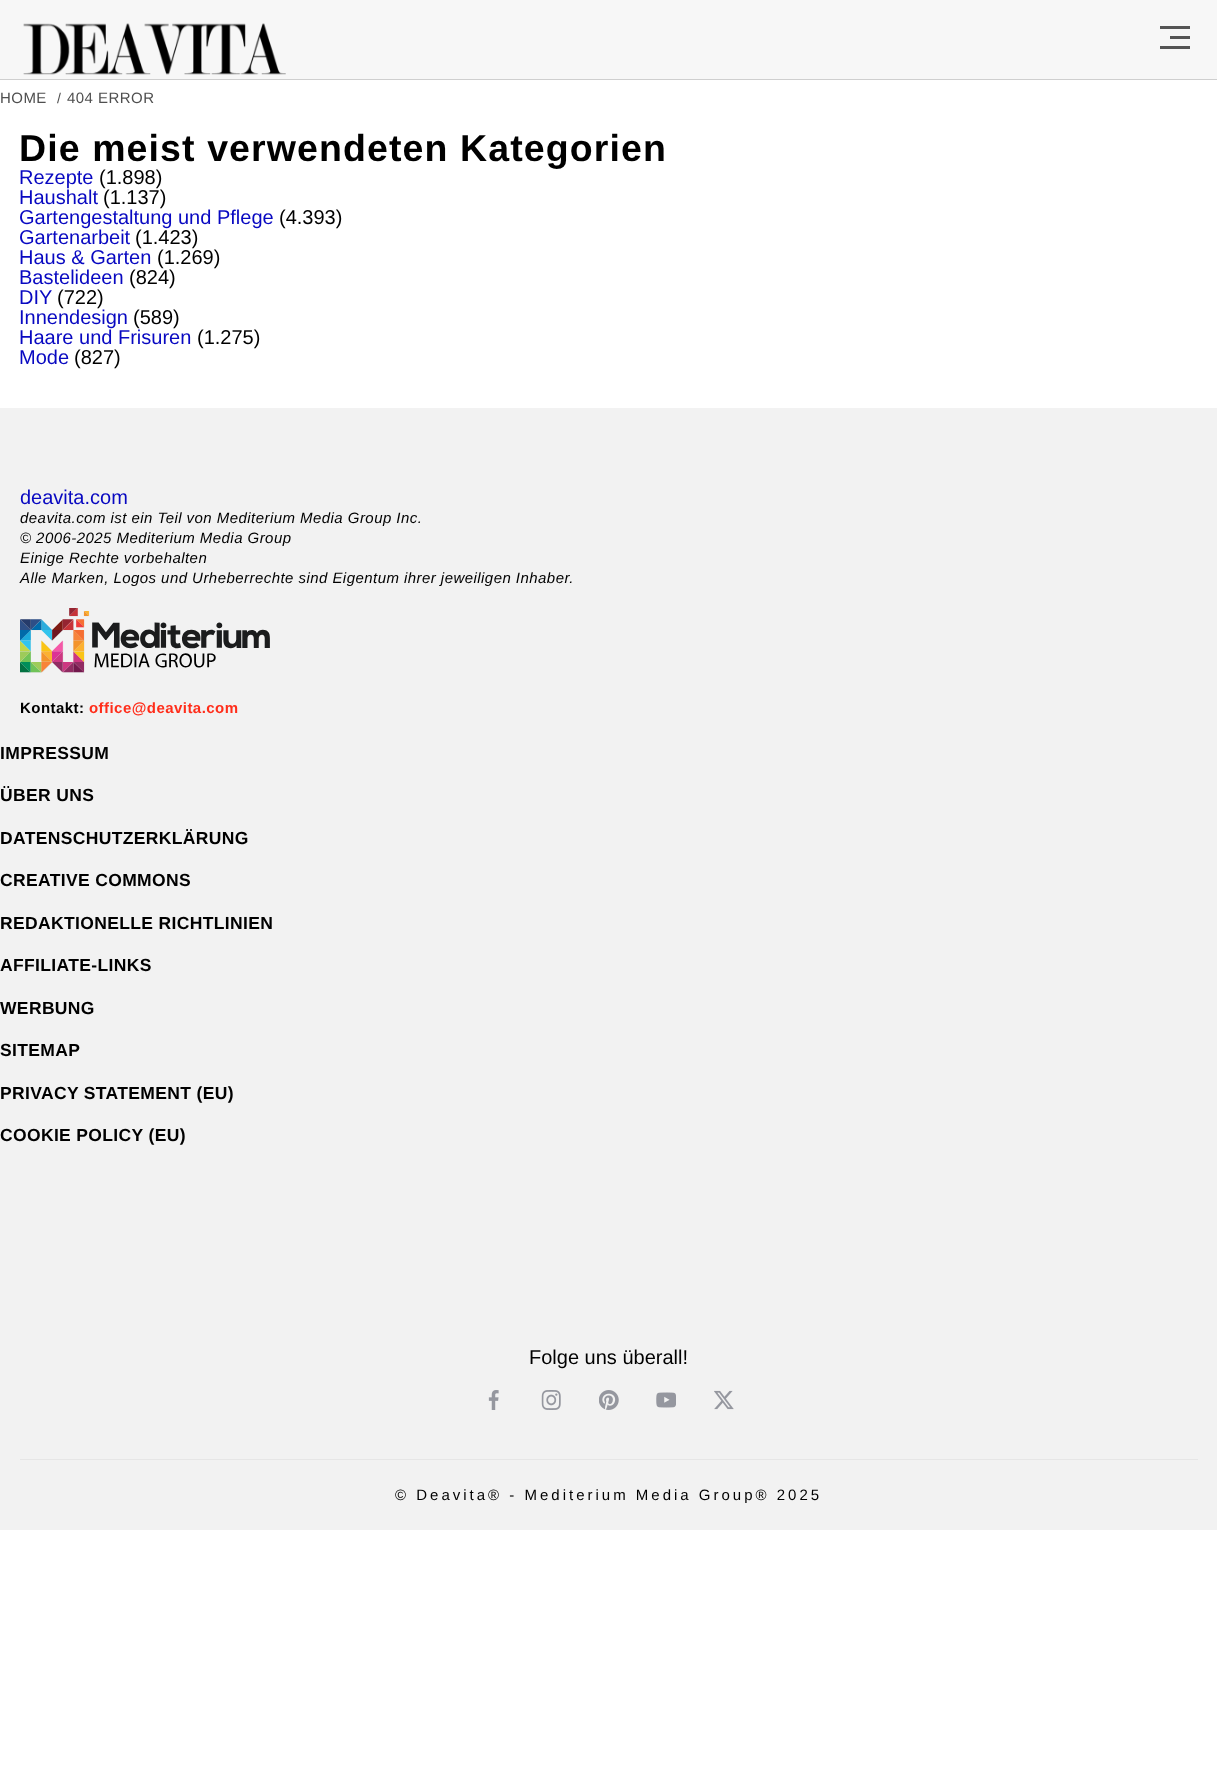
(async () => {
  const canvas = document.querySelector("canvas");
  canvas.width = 1217;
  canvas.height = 1765;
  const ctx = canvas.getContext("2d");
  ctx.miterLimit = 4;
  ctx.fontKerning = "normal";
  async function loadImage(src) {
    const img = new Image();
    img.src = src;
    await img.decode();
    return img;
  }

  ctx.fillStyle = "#ffffff";
  ctx.fillRect(0, 0, 1217, 1765);
  ctx.fillStyle = "#f7f7f7";
  ctx.fillRect(0, 0, 1217, 79);
  ctx.fillStyle = "#cfcfcf";
  ctx.fillRect(0, 79, 1217, 1);
  ctx.drawImage(await loadImage("img/1.png"), 23, 23, 263, 52);
  for (const [x, y, w, h, color] of [
    [1160, 26, 30, 3, "#555555"],
    [1170, 36, 20, 3, "#555555"],
    [1160, 46, 30, 3, "#555555"],
    [0, 408, 1217, 1122, "#f2f2f2"],
  ]) {
    ctx.fillStyle = color;
    ctx.fillRect(x, y, w, h);
  }
  ctx.drawImage(await loadImage("img/2.png"), 20, 608, 250, 65);
  ctx.drawImage(await loadImage("img/3.png"), 488, 1390, 11, 20);
  ctx.drawImage(await loadImage("img/4.png"), 541, 1390, 20, 20);
  ctx.drawImage(await loadImage("img/5.png"), 599, 1390, 20, 20);
  ctx.drawImage(await loadImage("img/6.png"), 656, 1392, 20, 16);
  ctx.drawImage(await loadImage("img/7.png"), 714, 1390, 20, 20);
  ctx.fillStyle = "#e6e6e6";
  ctx.fillRect(20, 1459, 1178, 1);
  ctx.letterSpacing = "0.45px";
  ctx.font = "15px Liberation Sans";
  ctx.fillStyle = "#4f4f4f";
  ctx.fillText("HOME", 0, 103);
  ctx.letterSpacing = "0px";
  ctx.font = "14px Liberation Sans";
  ctx.fillText("/", 57, 103);
  ctx.letterSpacing = "0.45px";
  ctx.font = "15px Liberation Sans";
  ctx.fillText("404 ERROR", 67, 103);
  ctx.letterSpacing = "1.1px";
  ctx.font = "bold 37.5px Liberation Sans";
  ctx.fillStyle = "#000000";
  ctx.fillText("Die meist verwendeten Kategorien", 19, 161);
  ctx.letterSpacing = "0px";
  ctx.font = "20px Liberation Sans";
  ctx.fillStyle = "#0808c1";
  ctx.fillText("Rezepte", 19, 184);
  ctx.fillStyle = "#000000";
  ctx.fillText("(1.898)", 99, 184);
  ctx.fillStyle = "#0808c1";
  ctx.fillText("Haushalt", 19, 204);
  ctx.fillStyle = "#000000";
  ctx.fillText("(1.137)", 103, 204);
  ctx.fillStyle = "#0808c1";
  ctx.fillText("Gartengestaltung und Pflege", 19, 224);
  ctx.fillStyle = "#000000";
  ctx.fillText("(4.393)", 279, 224);
  ctx.fillStyle = "#0808c1";
  ctx.fillText("Gartenarbeit", 19, 244);
  ctx.fillStyle = "#000000";
  ctx.fillText("(1.423)", 135, 244);
  ctx.fillStyle = "#0808c1";
  ctx.fillText("Haus & Garten", 19, 264);
  ctx.fillStyle = "#000000";
  ctx.fillText("(1.269)", 157, 264);
  ctx.fillStyle = "#0808c1";
  ctx.fillText("Bastelideen", 19, 284);
  ctx.fillStyle = "#000000";
  ctx.fillText("(824)", 129, 284);
  ctx.fillStyle = "#0808c1";
  ctx.fillText("DIY", 19, 304);
  ctx.fillStyle = "#000000";
  ctx.fillText("(722)", 57, 304);
  ctx.fillStyle = "#0808c1";
  ctx.fillText("Innendesign", 19, 324);
  ctx.fillStyle = "#000000";
  ctx.fillText("(589)", 133, 324);
  ctx.fillStyle = "#0808c1";
  ctx.fillText("Haare und Frisuren", 19, 344);
  ctx.fillStyle = "#000000";
  ctx.fillText("(1.275)", 197, 344);
  ctx.fillStyle = "#0808c1";
  ctx.fillText("Mode", 19, 364);
  ctx.fillStyle = "#000000";
  ctx.fillText("(827)", 74, 364);
  ctx.fillStyle = "#0808c1";
  ctx.fillText("deavita.com", 20, 504);
  ctx.letterSpacing = "0.45px";
  ctx.font = "italic 15px Liberation Sans";
  ctx.fillStyle = "#000000";
  for (const [text, x, y] of [
    ["deavita.com ist ein Teil von Mediterium Media Group Inc.", 20, 523],
    ["© 2006-2025 Mediterium Media Group", 20, 543],
    ["Einige Rechte vorbehalten", 20, 563],
    ["Alle Marken, Logos und Urheberrechte sind Eigentum ihrer jeweiligen Inhaber.", 20, 583],
  ]) {
    ctx.fillText(text, x, y);
  }
  ctx.font = "bold 15px Liberation Sans";
  ctx.fillText("Kontakt:", 20, 713);
  ctx.fillStyle = "#ff2d1a";
  ctx.fillText("office@deavita.com", 89, 713);
  ctx.letterSpacing = "0.35px";
  ctx.font = "bold 17.5px Liberation Sans";
  ctx.fillStyle = "#000000";
  for (const [text, x, y] of [
    ["IMPRESSUM", 0, 759],
    ["ÜBER UNS", 0, 801],
    ["DATENSCHUTZERKLÄRUNG", 0, 844],
    ["CREATIVE COMMONS", 0, 886],
    ["REDAKTIONELLE RICHTLINIEN", 0, 929],
    ["AFFILIATE-LINKS", 0, 971],
    ["WERBUNG", 0, 1014],
    ["SITEMAP", 0, 1056],
    ["PRIVACY STATEMENT (EU)", 0, 1099],
    ["COOKIE POLICY (EU)", 0, 1141],
  ]) {
    ctx.fillText(text, x, y);
  }
  ctx.letterSpacing = "0px";
  ctx.font = "20px Liberation Sans";
  ctx.fillText("Folge uns überall!", 529, 1364);
  ctx.letterSpacing = "3px";
  ctx.font = "15px Liberation Sans";
  ctx.fillText("© Deavita® - Mediterium Media Group® 2025", 395, 1500);
})();
